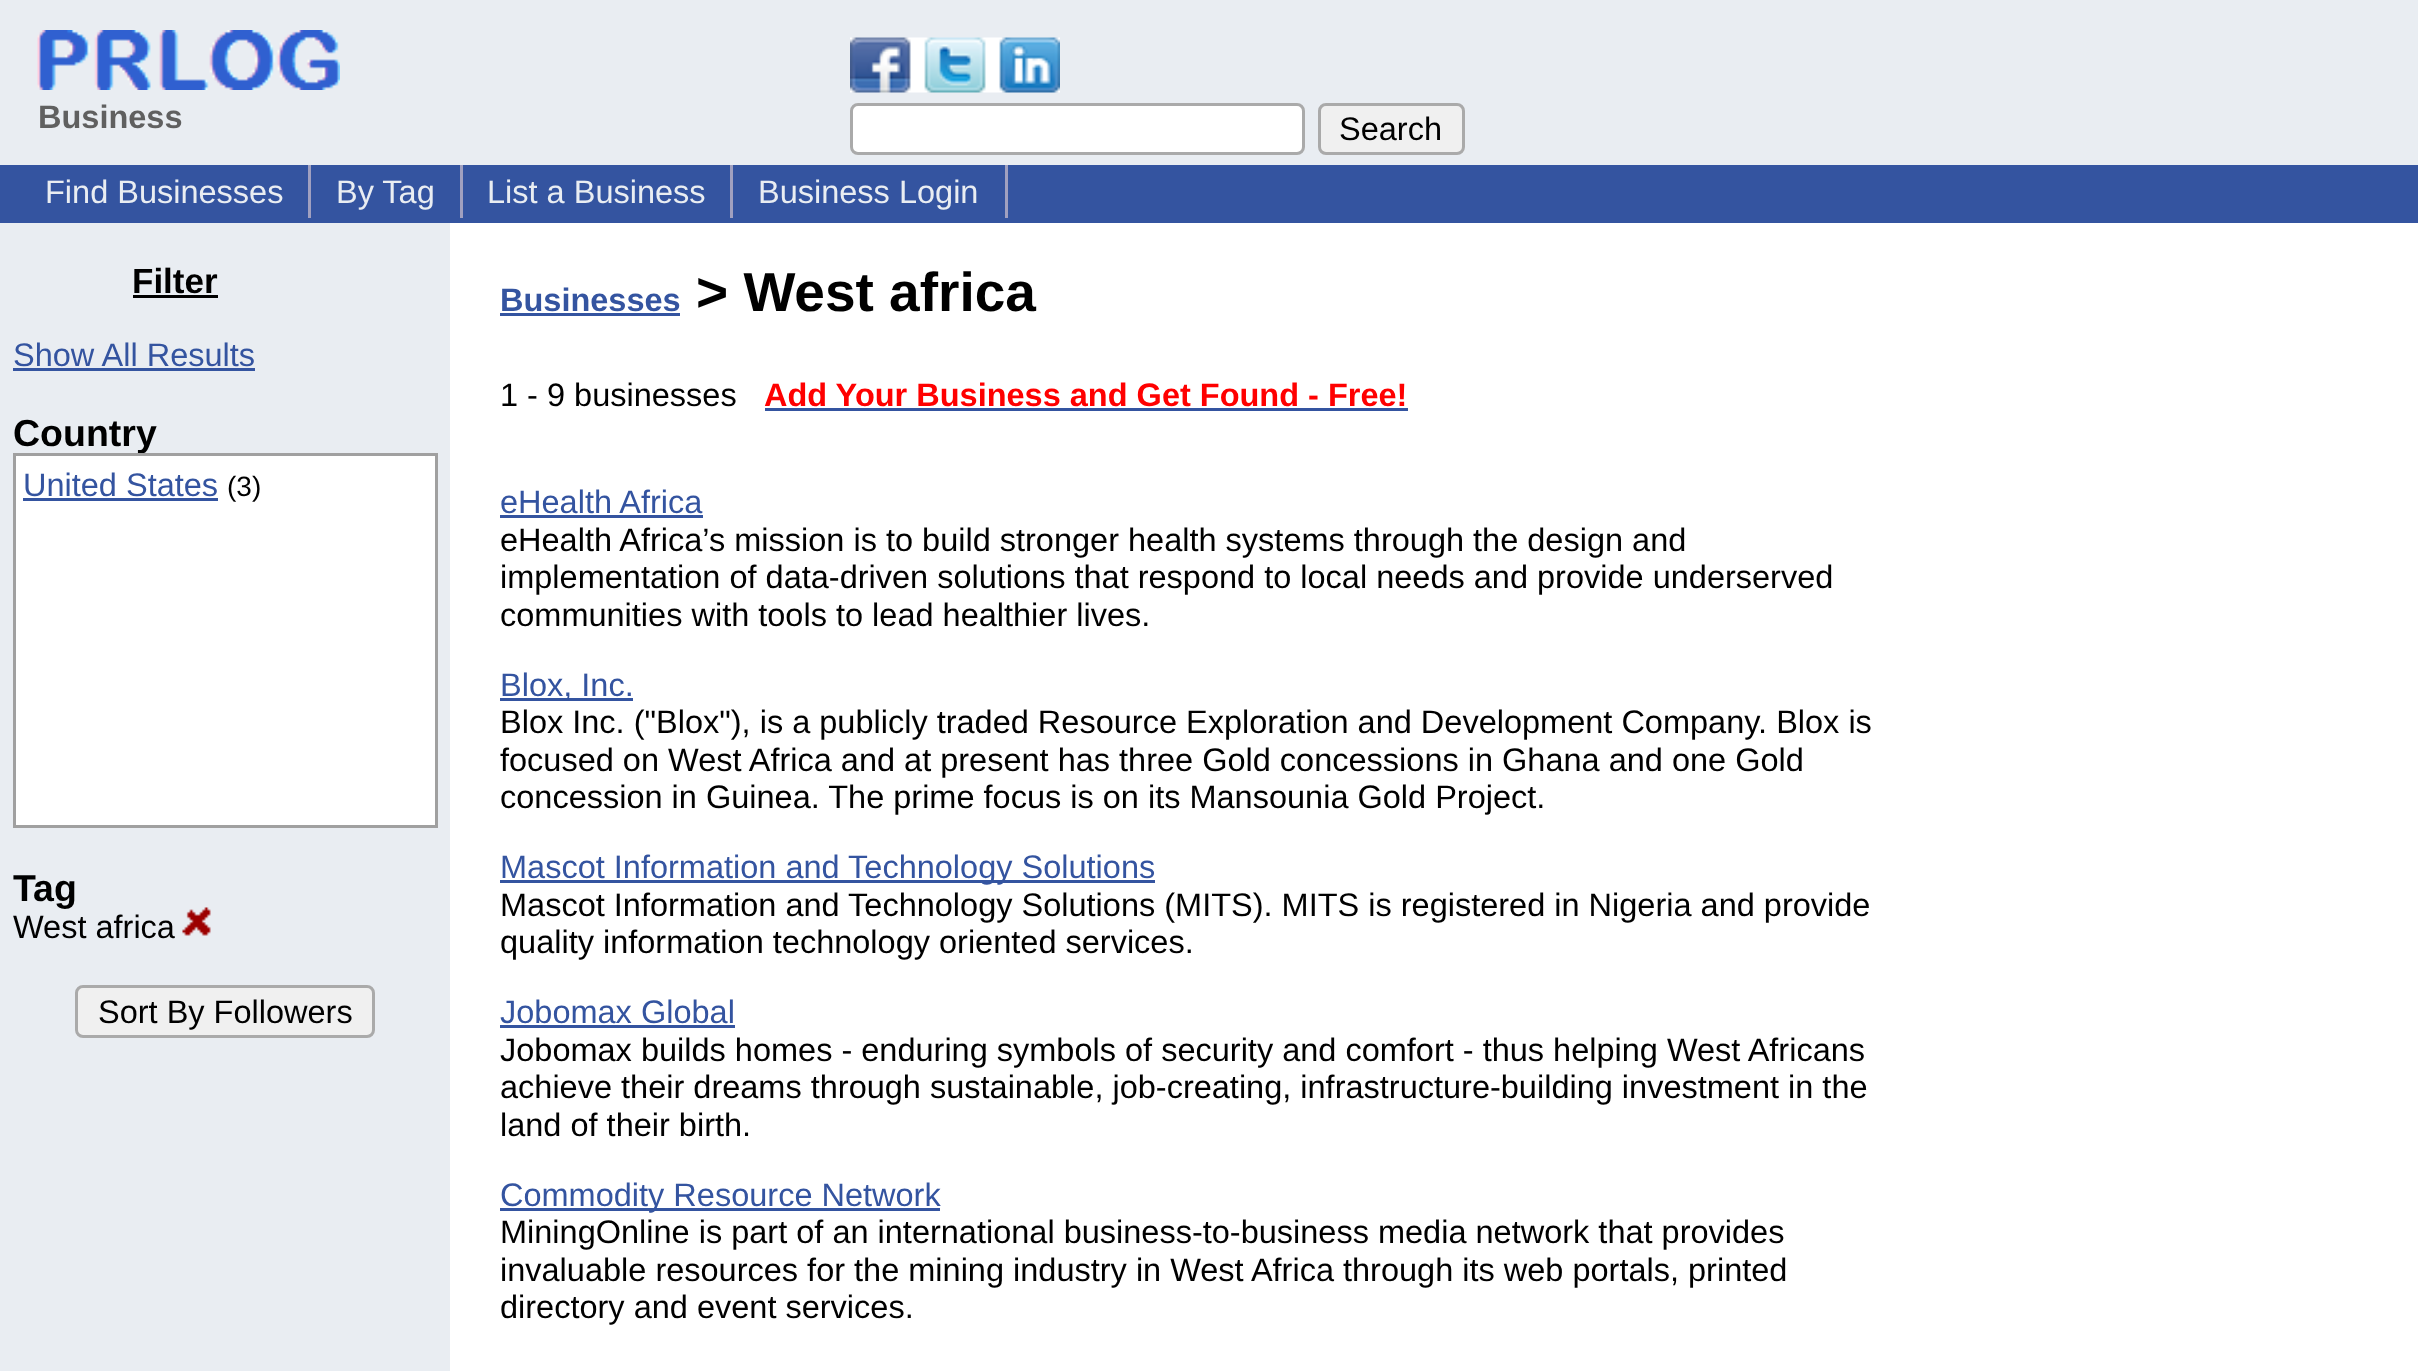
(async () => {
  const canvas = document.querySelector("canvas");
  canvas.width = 2418;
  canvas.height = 1371;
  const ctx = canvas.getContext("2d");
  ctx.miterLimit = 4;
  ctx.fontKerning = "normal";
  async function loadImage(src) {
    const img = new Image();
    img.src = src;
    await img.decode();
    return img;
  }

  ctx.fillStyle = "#ffffff";
  ctx.fillRect(0, 0, 2418, 1371);
  ctx.fillStyle = "#e9edf2";
  ctx.fillRect(0, 0, 2418, 165);
  ctx.drawImage(await loadImage("img/1.png"), 37, 30, 303, 60);
  ctx.drawImage(await loadImage("img/2.png"), 850, 37, 210, 56);
  ctx.fillStyle = "#ffffff";
  ctx.beginPath();
  ctx.roundRect(851.5, 104.5, 452, 49, 6.5);
  ctx.fill();
  ctx.strokeStyle = "#aaaaaa";
  ctx.lineWidth = 3;
  ctx.stroke();
  ctx.fillStyle = "#f0f0f0";
  ctx.beginPath();
  ctx.roundRect(1319.5, 104.5, 144, 49, 6.5);
  ctx.fill();
  ctx.stroke();
  for (const [x, y, w, h, color] of [
    [0, 165, 2418, 58, "#3454a0"],
    [308, 165, 3, 53, "#a0a0c0"],
    [460, 165, 3, 53, "#a0a0c0"],
    [730, 165, 3, 53, "#a0a0c0"],
    [1005, 165, 3, 53, "#a0a0c0"],
    [0, 223, 450, 1148, "#e9edf2"],
    [133, 295, 85, 3, "#000000"],
    [13, 368, 242, 3, "#3454a0"],
  ]) {
    ctx.fillStyle = color;
    ctx.fillRect(x, y, w, h);
  }
  ctx.drawImage(await loadImage("img/3.png"), 182, 907, 29, 29);
  ctx.fillStyle = "#f0f0f0";
  ctx.beginPath();
  ctx.roundRect(76.5, 986.5, 297, 50, 6.5);
  ctx.fill();
  ctx.stroke();
  for (const [x, y, w, h, color] of [
    [500, 313, 180, 3, "#3454a0"],
    [765, 408, 643, 3, "#3454a0"],
    [500, 515, 203, 3, "#3454a0"],
    [500, 698, 133, 3, "#3454a0"],
    [500, 880, 655, 3, "#3454a0"],
    [500, 1025, 235, 3, "#3454a0"],
    [500, 1208, 440, 3, "#3454a0"],
  ]) {
    ctx.fillStyle = color;
    ctx.fillRect(x, y, w, h);
  }
  ctx.font = "bold 32.5px Liberation Sans";
  ctx.fillStyle = "#606060";
  ctx.fillText("Business", 38, 128);
  ctx.font = "32.5px Liberation Sans";
  ctx.fillStyle = "#000000";
  ctx.fillText("Search", 1339, 140);
  ctx.fillStyle = "#e9edf2";
  for (const [text, x, y] of [
    ["Find Businesses", 45, 203],
    ["By Tag", 336, 203],
    ["List a Business", 487, 203],
    ["Business Login", 758, 203],
  ]) {
    ctx.fillText(text, x, y);
  }
  ctx.font = "bold 35px Liberation Sans";
  ctx.fillStyle = "#000000";
  ctx.fillText("Filter", 132, 293);
  ctx.font = "32.5px Liberation Sans";
  ctx.fillStyle = "#3454a0";
  ctx.fillText("Show All Results", 13, 366);
  ctx.font = "bold 37.5px Liberation Sans";
  ctx.fillStyle = "#000000";
  ctx.fillText("Country", 13, 446);
  ctx.fillStyle = "#ffffff";
  ctx.beginPath();
  ctx.rect(14.5, 454.5, 422, 372);
  ctx.fill();
  ctx.strokeStyle = "#a0a0a0";
  ctx.stroke();
  ctx.font = "32.5px Liberation Sans";
  ctx.fillStyle = "#3454a0";
  ctx.fillText("United States", 23, 496);
  ctx.fillRect(23, 498, 195, 3);
  ctx.font = "28px Liberation Sans";
  ctx.fillStyle = "#000000";
  ctx.fillText("(3)", 227, 496);
  ctx.font = "bold 37.5px Liberation Sans";
  ctx.fillText("Tag", 13, 901);
  ctx.font = "32.5px Liberation Sans";
  ctx.fillText("West africa", 13, 938);
  ctx.fillText("Sort By Followers", 98, 1023);
  ctx.font = "bold 32.5px Liberation Sans";
  ctx.fillStyle = "#3454a0";
  ctx.fillText("Businesses", 500, 311);
  ctx.font = "bold 55px Liberation Sans";
  ctx.fillStyle = "#000000";
  ctx.fillText("> West africa", 696, 311);
  ctx.font = "32.5px Liberation Sans";
  ctx.fillText("1 - 9 businesses", 500, 406);
  ctx.font = "bold 32.5px Liberation Sans";
  ctx.fillStyle = "#ff0000";
  ctx.fillText("Add Your Business and Get Found - Free!", 764, 406);
  ctx.font = "32.5px Liberation Sans";
  ctx.fillStyle = "#3454a0";
  ctx.fillText("eHealth Africa", 500, 513);
  ctx.fillStyle = "#000000";
  for (const [text, x, y] of [
    ["eHealth Africa’s mission is to build stronger health systems through the design and", 500, 551],
    ["implementation of data-driven solutions that respond to local needs and provide underserved", 500, 588],
    ["communities with tools to lead healthier lives.", 500, 626],
  ]) {
    ctx.fillText(text, x, y);
  }
  ctx.fillStyle = "#3454a0";
  ctx.fillText("Blox, Inc.", 500, 696);
  ctx.fillStyle = "#000000";
  for (const [text, x, y] of [
    ["Blox Inc. (\"Blox\"), is a publicly traded Resource Exploration and Development Company. Blox is", 500, 733],
    ["focused on West Africa and at present has three Gold concessions in Ghana and one Gold", 500, 771],
    ["concession in Guinea. The prime focus is on its Mansounia Gold Project.", 500, 808],
  ]) {
    ctx.fillText(text, x, y);
  }
  ctx.fillStyle = "#3454a0";
  ctx.fillText("Mascot Information and Technology Solutions", 500, 878);
  ctx.fillStyle = "#000000";
  ctx.fillText("Mascot Information and Technology Solutions (MITS). MITS is registered in Nigeria and provide", 500, 916);
  ctx.fillText("quality information technology oriented services.", 500, 953);
  ctx.fillStyle = "#3454a0";
  ctx.fillText("Jobomax Global", 500, 1023);
  ctx.fillStyle = "#000000";
  for (const [text, x, y] of [
    ["Jobomax builds homes - enduring symbols of security and comfort - thus helping West Africans", 500, 1061],
    ["achieve their dreams through sustainable, job-creating, infrastructure-building investment in the", 500, 1098],
    ["land of their birth.", 500, 1136],
  ]) {
    ctx.fillText(text, x, y);
  }
  ctx.fillStyle = "#3454a0";
  ctx.fillText("Commodity Resource Network", 500, 1206);
  ctx.fillStyle = "#000000";
  for (const [text, x, y] of [
    ["MiningOnline is part of an international business-to-business media network that provides", 500, 1243],
    ["invaluable resources for the mining industry in West Africa through its web portals, printed", 500, 1281],
    ["directory and event services.", 500, 1318],
  ]) {
    ctx.fillText(text, x, y);
  }
})();
